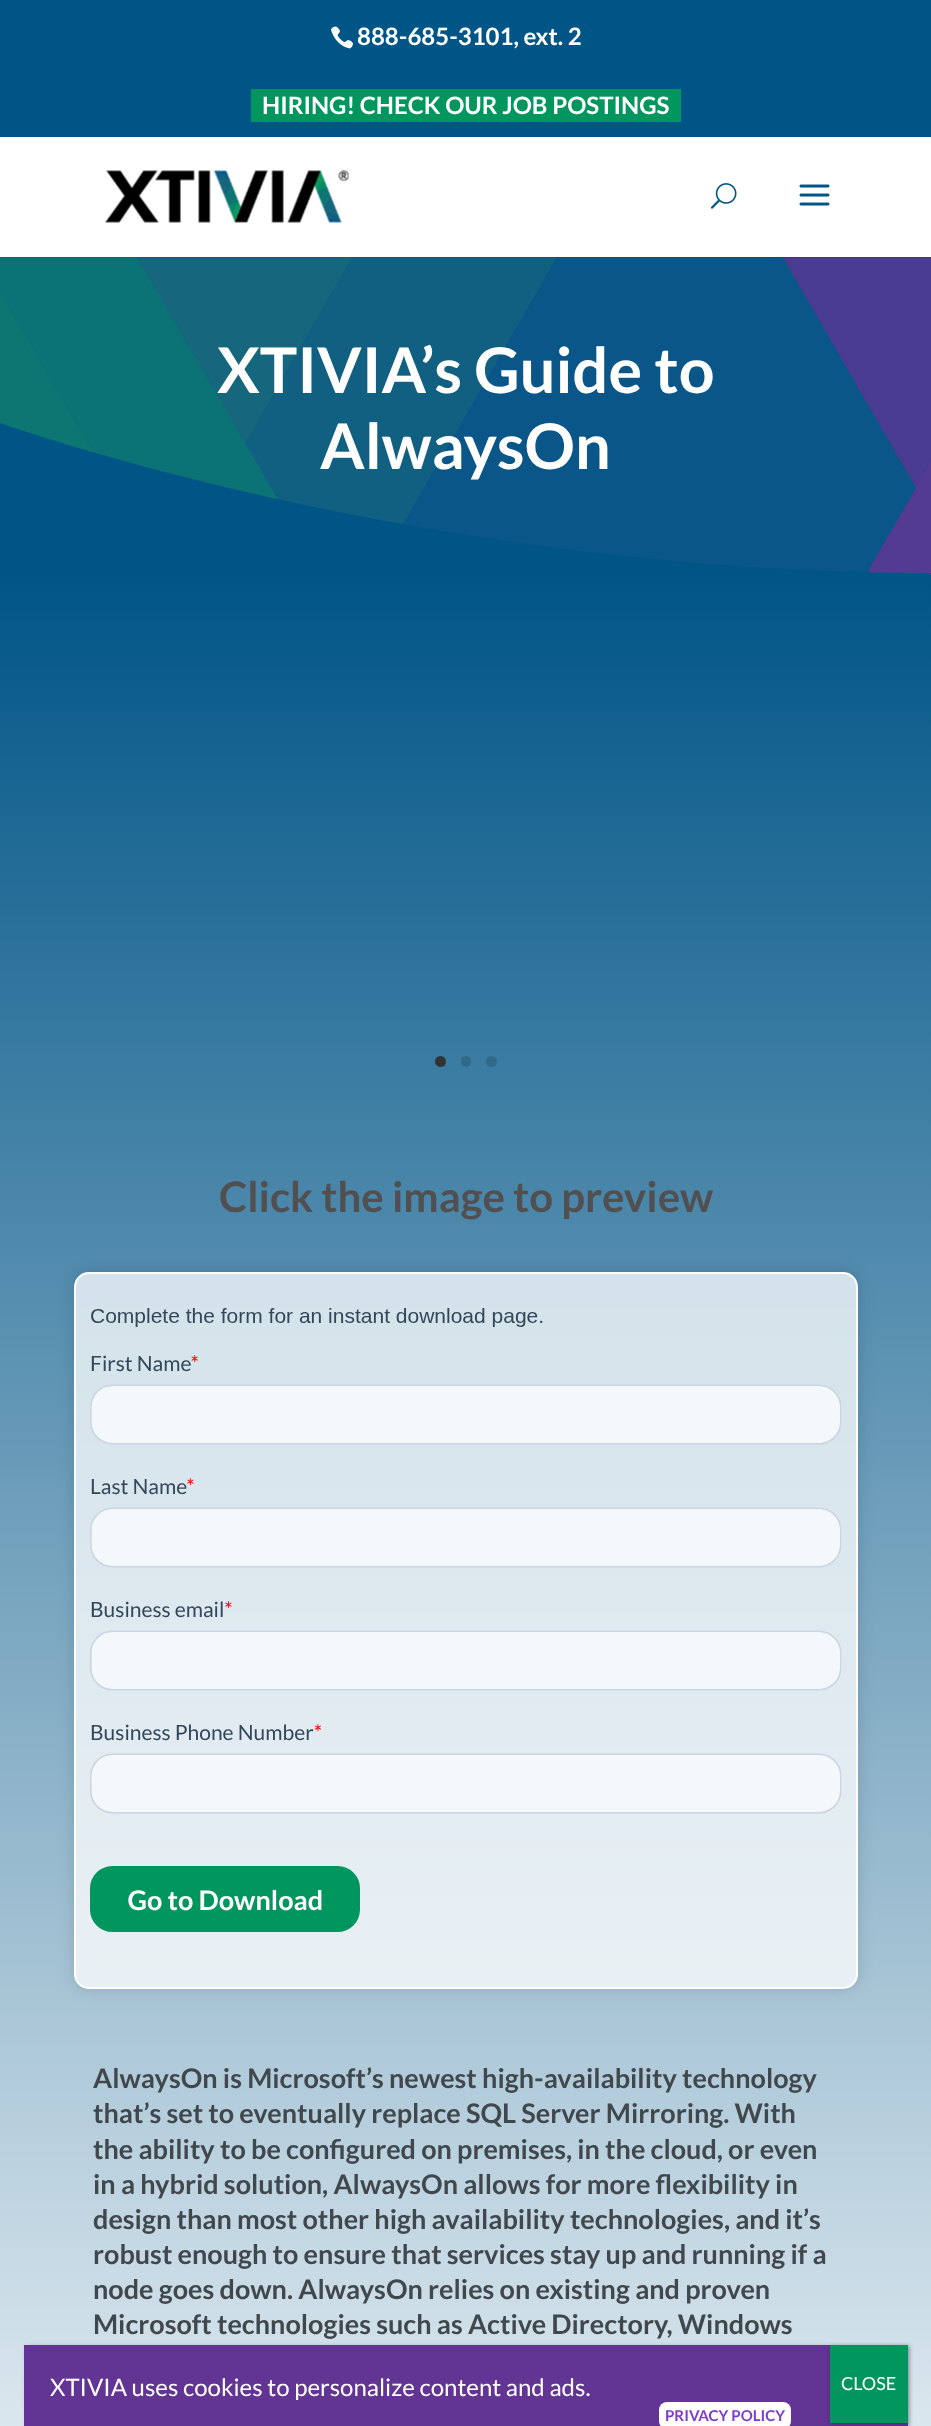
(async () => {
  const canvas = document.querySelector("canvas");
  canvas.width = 931;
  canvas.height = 2426;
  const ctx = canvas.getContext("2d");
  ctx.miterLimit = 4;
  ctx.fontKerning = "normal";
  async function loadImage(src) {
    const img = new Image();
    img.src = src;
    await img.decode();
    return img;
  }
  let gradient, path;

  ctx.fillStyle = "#ffffff";
  ctx.fillRect(0, 0, 931, 2426);
  ctx.fillStyle = "#005587";
  ctx.fillRect(0, 0, 931, 137);
  ctx.drawImage(await loadImage("img/1.png"), 331, 26, 22, 23);
  ctx.fillStyle = "#00965e";
  ctx.fillRect(251, 89, 430, 33);
  ctx.drawImage(await loadImage("img/5.png"), 0, 257, 931, 316);
  ctx.fillStyle = "rgba(0, 0, 0, 0.1)";
  path = new Path2D("M0 256V258H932V138V256Z");
  ctx.fill(path);
  ctx.fillStyle = "#ffffff";
  ctx.fillRect(0, 256, 931, 1);
  ctx.drawImage(await loadImage("img/2.png"), 105, 170, 244, 53);
  ctx.drawImage(await loadImage("img/3.png"), 710, 183, 27, 26);
  ctx.drawImage(await loadImage("img/4.png"), 799, 184, 31, 22);
  ctx.fillStyle = "#005587";
  path = new Path2D("M0 573H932C417 573 0 423 0 423Z");
  ctx.fill(path);
  gradient = ctx.createLinearGradient(466, 573, 466, 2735);
  gradient.addColorStop(0, "#005587");
  gradient.addColorStop(1, "#ffffff");
  ctx.fillStyle = gradient;
  ctx.fillRect(0, 573, 931, 1853);
  ctx.fillStyle = "#333333";
  ctx.beginPath();
  ctx.arc(440.5, 1061.5, 5.5, 0, Math.PI * 2);
  ctx.fill();
  ctx.fillStyle = "#31698a";
  ctx.beginPath();
  ctx.roundRect(461, 1056, 10, 11, 5);
  ctx.fill();
  ctx.beginPath();
  ctx.arc(491.5, 1061.5, 5.5, 0, Math.PI * 2);
  ctx.fill();
  ctx.save();
  path = new Path2D("M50 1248H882V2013H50ZM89 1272H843C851.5 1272 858 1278.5 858 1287V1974C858 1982.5 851.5 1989 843 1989H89C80.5 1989 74 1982.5 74 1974V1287C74 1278.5 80.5 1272 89 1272Z");
  ctx.clip(path, "evenodd");
  ctx.fillStyle = "rgba(0, 0, 0, 0.13)";
  ctx.filter = "blur(7.5px)";
  ctx.beginPath();
  ctx.roundRect(74, 1272, 784, 717, 15);
  ctx.fill();
  ctx.filter = "none";
  ctx.restore();
  ctx.fillStyle = "rgba(255, 255, 255, 0.75)";
  ctx.beginPath();
  ctx.roundRect(75, 1273, 782, 715, 14);
  ctx.fill();
  ctx.strokeStyle = "#ffffff";
  ctx.lineWidth = 2;
  ctx.stroke();
  ctx.drawImage(await loadImage("img/6.png"), 90, 1308, 752, 624);
  ctx.fillStyle = "rgba(2, 2, 2, 0.23)";
  ctx.filter = "blur(2px)";
  ctx.beginPath();
  ctx.rect(26, 2346, 883, 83);
  ctx.fill();
  ctx.filter = "none";
  ctx.fillStyle = "#623493";
  ctx.fillRect(24, 2345, 884, 81);
  ctx.fillStyle = "#ffffff";
  ctx.beginPath();
  ctx.roundRect(659, 2402, 132, 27, 8);
  ctx.fill();
  ctx.fillStyle = "rgba(2, 2, 2, 0.23)";
  ctx.filter = "blur(2px)";
  ctx.beginPath();
  ctx.rect(831, 2346, 78, 78);
  ctx.fill();
  ctx.filter = "none";
  ctx.fillStyle = "#00965e";
  ctx.fillRect(830, 2345, 78, 78);
  ctx.font = "bold 24px Lato";
  ctx.fillStyle = "#ffffff";
  ctx.fillText("888-685-3101, ext. 2", 357, 45);
  ctx.fillText("HIRING! CHECK OUR JOB POSTINGS", 262, 114);
  ctx.font = "bold 63px Lato";
  ctx.fillText("XTIVIA’s Guide to", 217, 393);
  ctx.fillText("AlwaysOn", 320, 469);
  ctx.font = "bold 42px Lato";
  ctx.fillStyle = "#514f4f";
  ctx.fillText("Click the image to preview", 219, 1212);
  ctx.font = "bold 27px Lato";
  ctx.fillStyle = "#41484d";
  for (const [text, x, y] of [
    ["AlwaysOn is Microsoft’s newest high-availability technology", 93, 2088],
    ["that’s set to eventually replace SQL Server Mirroring. With", 93, 2123],
    ["the ability to be configured on premises, in the cloud, or even", 93, 2159],
    ["in a hybrid solution, AlwaysOn allows for more flexibility in", 93, 2194],
    ["design than most other high availability technologies, and it’s", 93, 2229],
    ["robust enough to ensure that services stay up and running if a", 93, 2264],
    ["node goes down. AlwaysOn relies on existing and proven", 93, 2299],
    ["Microsoft technologies such as Active Directory, Windows", 93, 2334],
  ]) {
    ctx.fillText(text, x, y);
  }
  ctx.font = "24px Lato";
  ctx.fillStyle = "#ffffff";
  ctx.fillText("XTIVIA uses cookies to personalize content and ads.", 50, 2396);
  ctx.font = "bold 15px Lato";
  ctx.fillStyle = "#7e3bd0";
  ctx.fillText("PRIVACY POLICY", 665, 2421);
  ctx.font = "18px Lato";
  ctx.fillStyle = "#ffffff";
  ctx.fillText("CLOSE", 841, 2390);
})();
